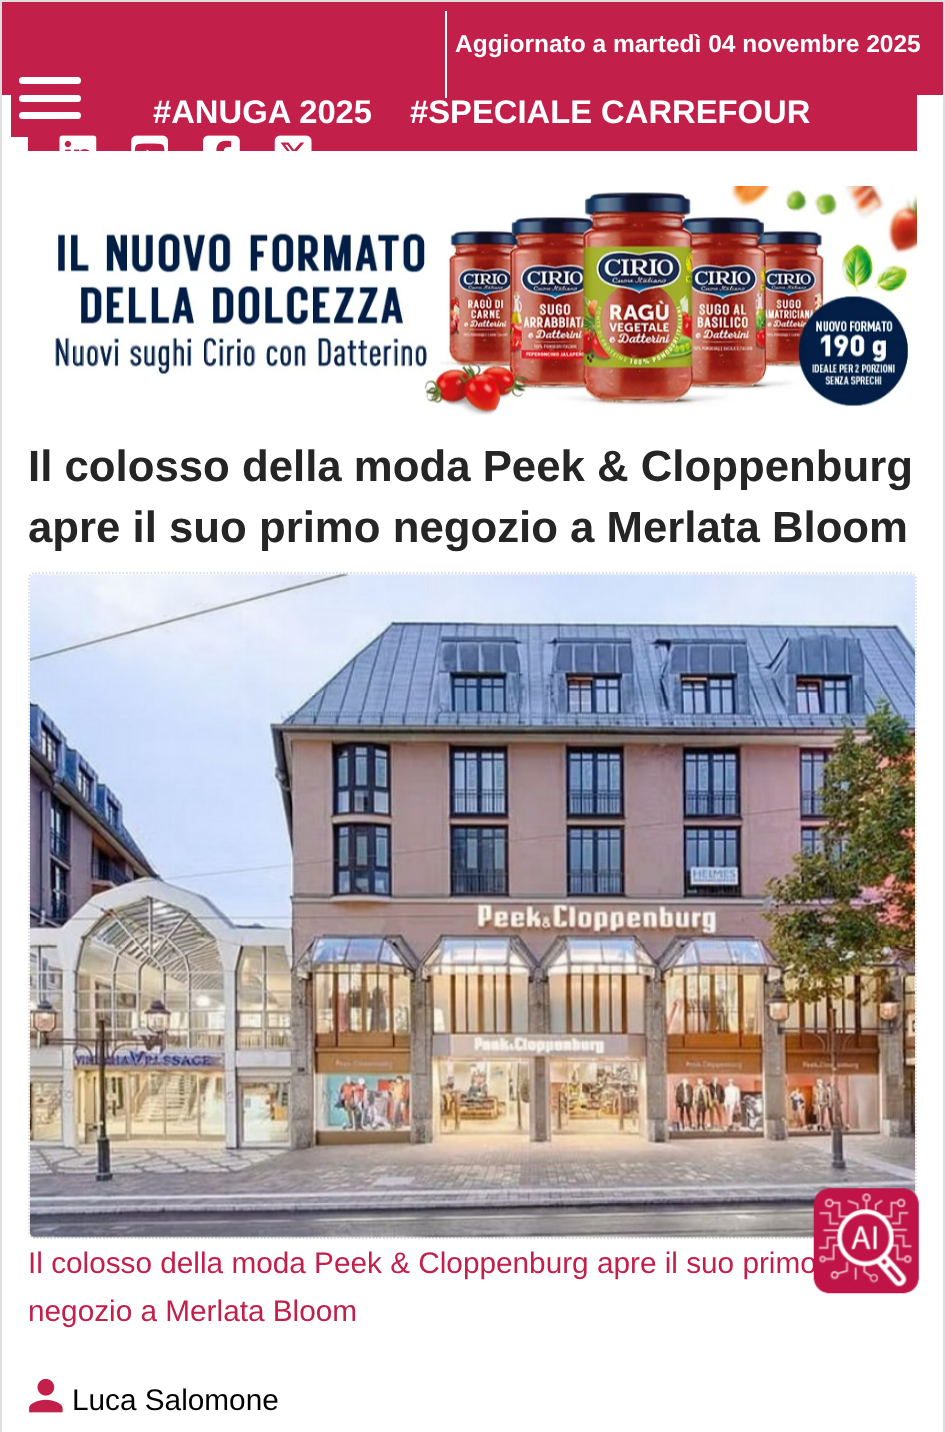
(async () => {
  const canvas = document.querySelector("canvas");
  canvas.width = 945;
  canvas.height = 1432;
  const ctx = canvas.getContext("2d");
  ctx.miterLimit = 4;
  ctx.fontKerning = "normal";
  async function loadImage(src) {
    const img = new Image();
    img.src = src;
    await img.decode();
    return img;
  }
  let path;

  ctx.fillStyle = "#ffffff";
  ctx.fillRect(0, 0, 945, 1432);
  ctx.strokeStyle = "#dedede";
  ctx.lineWidth = 2;
  ctx.strokeRect(1, 1, 943, 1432);
  for (const [x, y, w, h, color] of [
    [2, 2, 941, 93, "#c21f4a"],
    [28, 95, 889, 56, "#c21f4a"],
    [445, 11, 2, 87, "#ffffff"],
    [11, 95, 17, 42, "#c21f4a"],
  ]) {
    ctx.fillStyle = color;
    ctx.fillRect(x, y, w, h);
  }
  ctx.fillStyle = "#ffffff";
  ctx.beginPath();
  ctx.roundRect(19, 95, 62, 7, 3.5);
  ctx.fill();
  ctx.beginPath();
  ctx.roundRect(19, 77, 62, 7, 3.5);
  ctx.fill();
  ctx.beginPath();
  ctx.roundRect(19, 112, 62, 7, 3.5);
  ctx.fill();
  ctx.drawImage(await loadImage("img/1.png"), 59, 135, 38, 16);
  ctx.drawImage(await loadImage("img/2.png"), 131, 135, 37, 16);
  ctx.drawImage(await loadImage("img/3.png"), 203, 135, 37, 16);
  ctx.drawImage(await loadImage("img/4.png"), 274, 135, 38, 16);
  ctx.drawImage(await loadImage("img/5.png"), 51, 186, 866, 229);
  path = new Path2D("M35 573H910C913.5 573 916 576 916 579V1232C916 1235.5 913.5 1238 910 1238H35C31.5 1238 29 1235.5 29 1232V579C29 576 31.5 573 35 573Z");
  ctx.lineWidth = 1.8;
  ctx.setLineDash([1.75, 1.75]);
  ctx.stroke(path);
  ctx.drawImage(await loadImage("img/6.png"), 29, 573, 887, 665);
  ctx.drawImage(await loadImage("img/7.png"), 29, 1378, 34, 35);
  ctx.font = "bold 24.5px Liberation Sans";
  ctx.fillText("Aggiornato a martedì 04 novembre 2025", 455, 52);
  ctx.font = "bold 32.75px Liberation Sans";
  ctx.fillText("#ANUGA 2025", 153, 123);
  ctx.fillText("#SPECIALE CARREFOUR", 410, 123);
  ctx.font = "bold 43.75px Liberation Sans";
  ctx.fillStyle = "#252525";
  ctx.fillText("Il colosso della moda Peek & Cloppenburg", 28, 481);
  ctx.fillText("apre il suo primo negozio a Merlata Bloom", 28, 542);
  ctx.font = "29.75px Liberation Sans";
  ctx.fillStyle = "#c21f4a";
  ctx.fillText("Il colosso della moda Peek & Cloppenburg apre il suo primo", 28, 1273);
  ctx.fillText("negozio a Merlata Bloom", 28, 1321);
  ctx.fillStyle = "#000000";
  ctx.fillText("Luca Salomone", 72, 1410);
  ctx.drawImage(await loadImage("img/8.png"), 813, 1188, 106, 106);
})();
